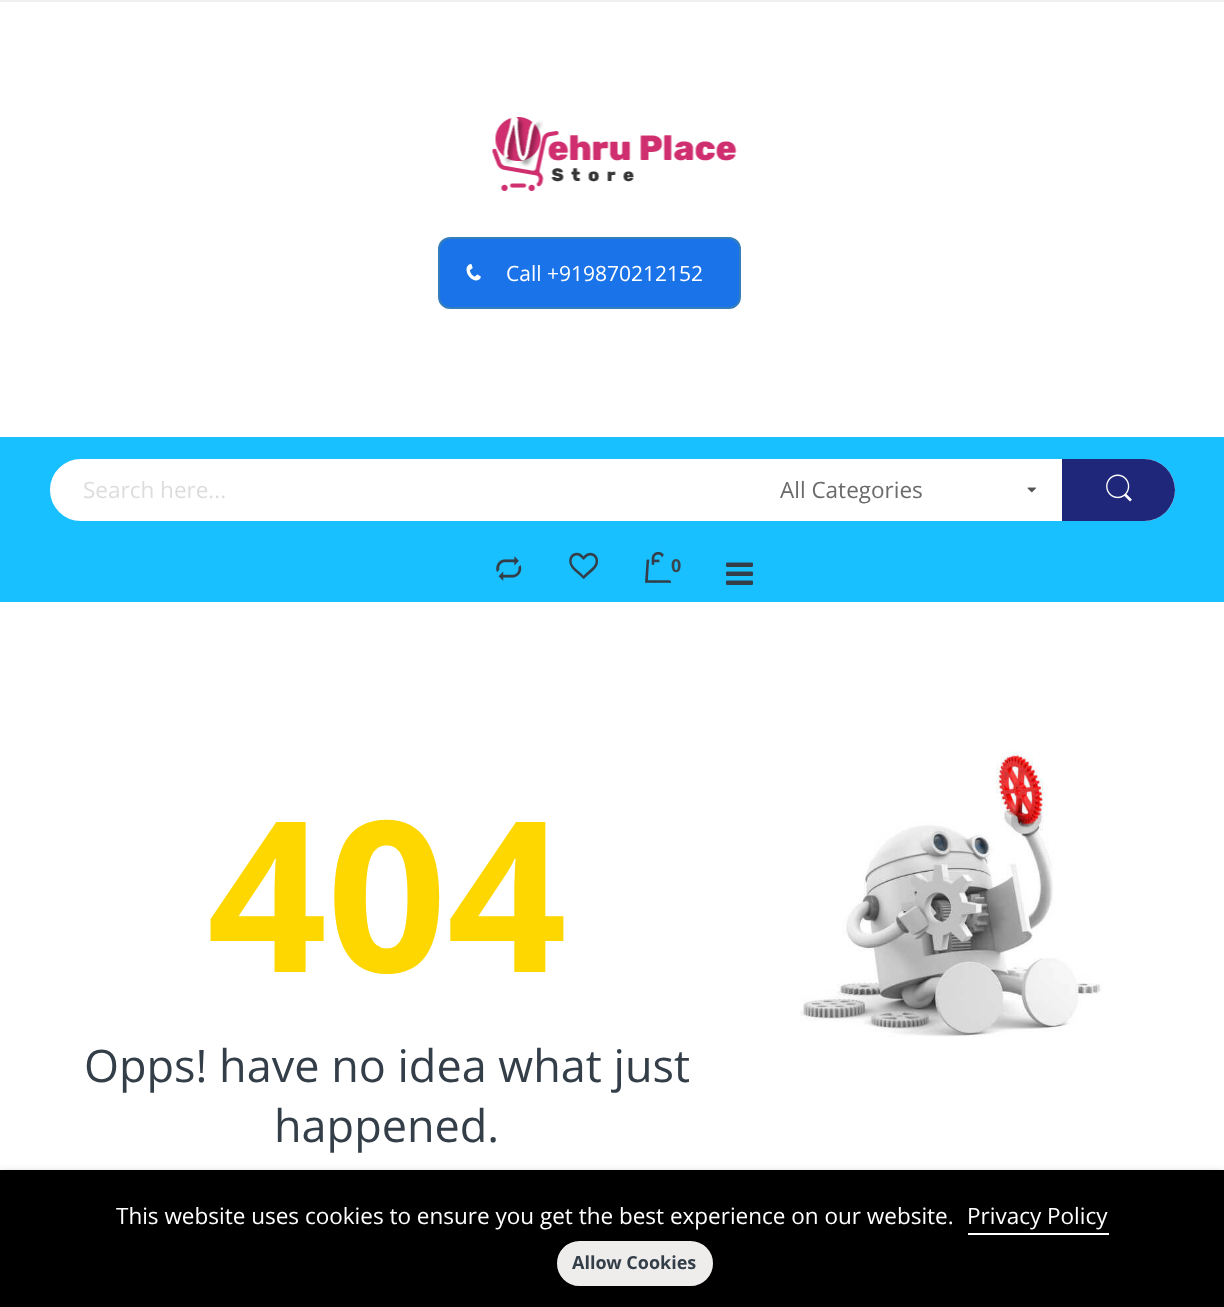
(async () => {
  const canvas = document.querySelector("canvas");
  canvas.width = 1224;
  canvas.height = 1307;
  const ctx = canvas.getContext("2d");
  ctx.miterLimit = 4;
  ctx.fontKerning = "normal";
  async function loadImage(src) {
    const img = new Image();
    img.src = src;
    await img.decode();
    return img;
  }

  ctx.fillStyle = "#ffffff";
  ctx.fillRect(0, 0, 1224, 1307);
  ctx.fillStyle = "#efefef";
  ctx.fillRect(0, 0, 1224, 2);
  ctx.drawImage(await loadImage("img/1.png"), 492, 117, 245, 74);
  ctx.fillStyle = "#1a73e8";
  ctx.beginPath();
  ctx.roundRect(439, 238, 301, 70, 11);
  ctx.fill();
  ctx.strokeStyle = "#357ebd";
  ctx.lineWidth = 2;
  ctx.stroke();
  ctx.drawImage(await loadImage("img/2.png"), 466, 264, 15, 17);
  ctx.fillStyle = "#19c0ff";
  ctx.fillRect(0, 437, 1224, 165);
  ctx.fillStyle = "#ffffff";
  ctx.beginPath();
  ctx.roundRect(51.5, 460.5, 1122, 59, 29.5);
  ctx.fill();
  ctx.strokeStyle = "#ffffff";
  ctx.lineWidth = 3;
  ctx.stroke();
  ctx.drawImage(await loadImage("img/3.png"), 1027, 487, 9, 6);
  ctx.fillStyle = "#1e2779";
  ctx.beginPath();
  ctx.roundRect(1062, 459, 113, 62, [0, 31, 31, 0]);
  ctx.fill();
  ctx.drawImage(await loadImage("img/4.png"), 1106, 474, 26, 28);
  ctx.drawImage(await loadImage("img/5.png"), 496, 556, 26, 25);
  ctx.drawImage(await loadImage("img/6.png"), 569, 552, 30, 27);
  ctx.drawImage(await loadImage("img/7.png"), 645, 551, 27, 32);
  ctx.fillStyle = "#19c0ff";
  ctx.beginPath();
  ctx.arc(676.5, 565.5, 16.5, 0, Math.PI * 2);
  ctx.fill();
  ctx.drawImage(await loadImage("img/8.png"), 726, 562, 27, 23);
  ctx.drawImage(await loadImage("img/9.png"), 800, 751, 302, 286);
  ctx.fillStyle = "rgba(30, 32, 40, 0.3)";
  ctx.filter = "blur(4.5px)";
  ctx.beginPath();
  ctx.rect(-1, 1173, 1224, 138);
  ctx.fill();
  ctx.filter = "none";
  ctx.fillStyle = "#000000";
  ctx.fillRect(0, 1170, 1224, 137);
  ctx.fillStyle = "#ffffff";
  ctx.fillRect(968, 1233, 141, 2);
  ctx.fillStyle = "#efecec";
  ctx.beginPath();
  ctx.roundRect(558, 1242, 154, 43, 21.5);
  ctx.fill();
  ctx.strokeStyle = "#efecec";
  ctx.lineWidth = 2;
  ctx.stroke();
  ctx.font = "21px Open Sans";
  ctx.fillStyle = "#ffffff";
  ctx.fillText("Call +919870212152", 506, 281);
  ctx.font = "22.5px Open Sans";
  ctx.fillStyle = "#dddddd";
  ctx.fillText("Search here...", 83, 498);
  ctx.fillStyle = "#6b6b6b";
  ctx.fillText("All Categories", 780, 498);
  ctx.font = "bold 18px Open Sans";
  ctx.fillStyle = "#3a454e";
  ctx.fillText("0", 671, 572);
  ctx.font = "bold 210px Open Sans";
  ctx.fillStyle = "#fed700";
  ctx.fillText("404", 207, 972);
  ctx.font = "45px Open Sans";
  ctx.fillStyle = "#333e48";
  ctx.fillText("Opps! have no idea what just", 84, 1082);
  ctx.fillText("happened.", 274, 1142);
  ctx.font = "22.5px Open Sans";
  ctx.fillStyle = "#ffffff";
  ctx.fillText("This website uses cookies to ensure you get the best experience on our website.", 116, 1224);
  ctx.fillText("Privacy Policy", 967, 1224);
  ctx.font = "bold 18px Open Sans";
  ctx.fillStyle = "#333e48";
  ctx.fillText("Allow Cookies", 572, 1269);
})();
